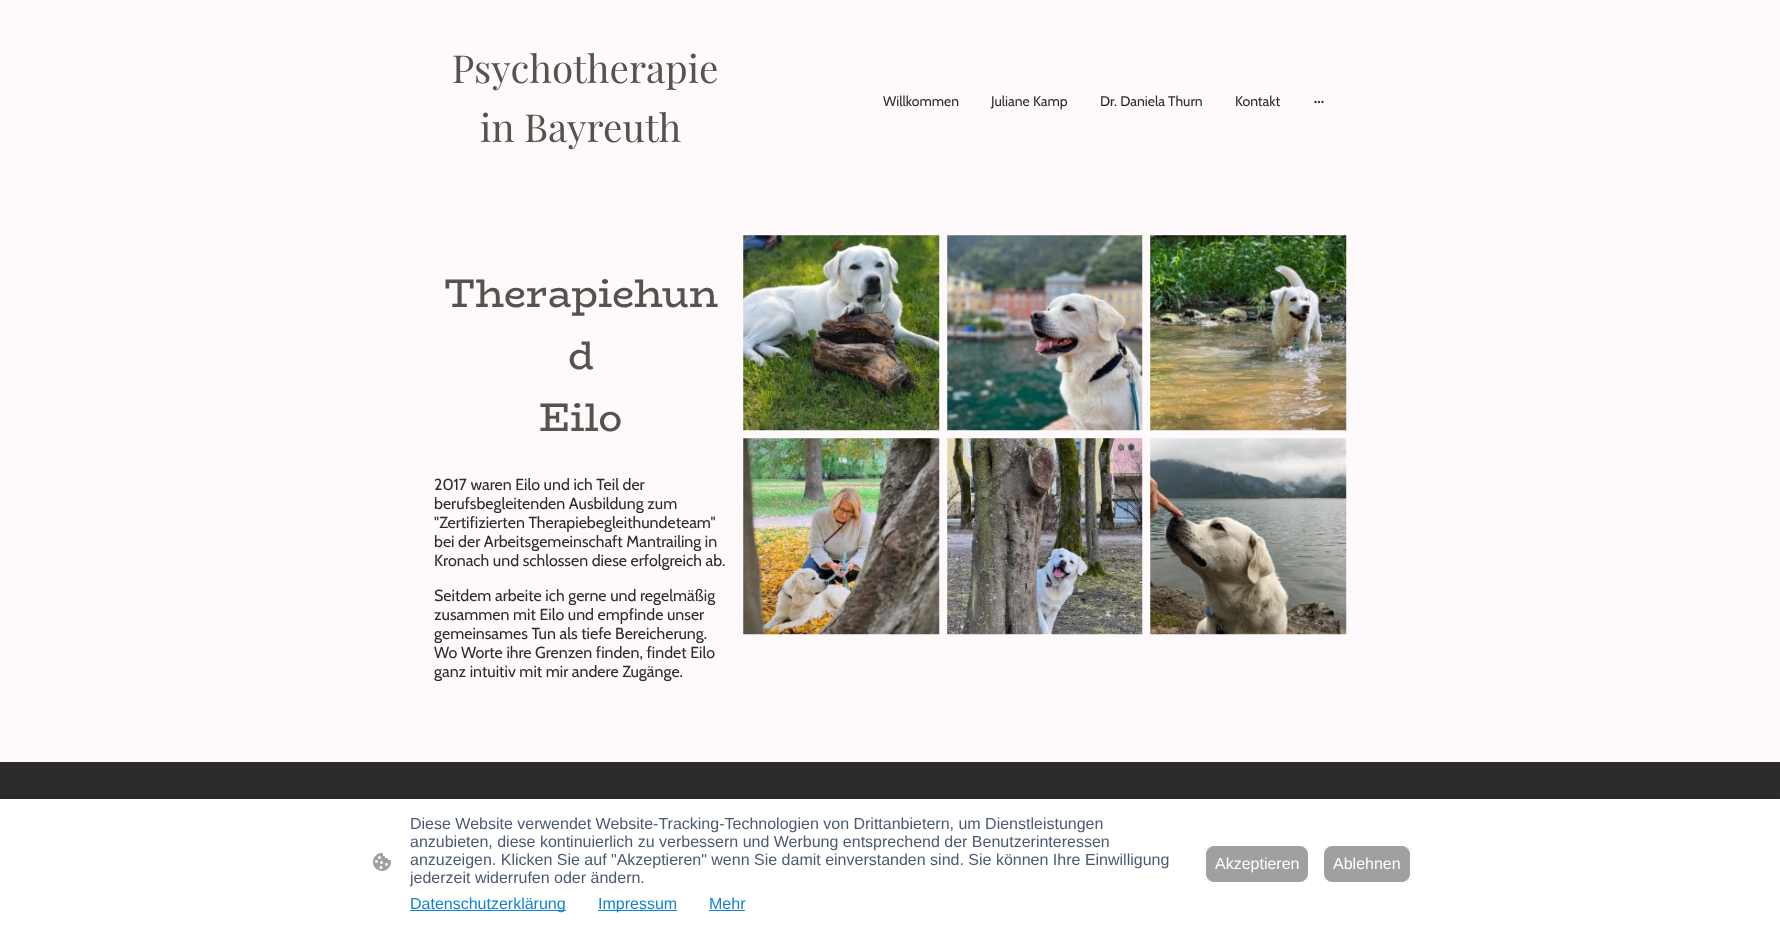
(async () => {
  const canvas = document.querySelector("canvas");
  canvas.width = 1780;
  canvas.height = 929;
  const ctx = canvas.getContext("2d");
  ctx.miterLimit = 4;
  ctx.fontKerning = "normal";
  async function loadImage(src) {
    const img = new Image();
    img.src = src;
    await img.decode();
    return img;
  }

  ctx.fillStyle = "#fef9fa";
  ctx.fillRect(0, 0, 1780, 929);
  ctx.drawImage(await loadImage("img/1.png"), 453, 52, 264, 98);
  ctx.drawImage(await loadImage("img/2.png"), 1314, 100, 10, 4);
  ctx.drawImage(await loadImage("img/3.png"), 743, 235, 197, 196);
  ctx.drawImage(await loadImage("img/4.png"), 947, 235, 196, 196);
  ctx.drawImage(await loadImage("img/5.png"), 1150, 235, 197, 196);
  ctx.drawImage(await loadImage("img/6.png"), 743, 438, 197, 197);
  ctx.drawImage(await loadImage("img/7.png"), 947, 438, 196, 197);
  ctx.drawImage(await loadImage("img/8.png"), 1150, 438, 197, 197);
  ctx.fillStyle = "#2c2c2c";
  ctx.fillRect(0, 762, 1780, 37);
  ctx.fillStyle = "rgba(0, 0, 0, 0.63)";
  ctx.filter = "blur(4px)";
  ctx.beginPath();
  ctx.rect(6, 802, 1768, 118);
  ctx.fill();
  ctx.filter = "none";
  ctx.fillStyle = "#ffffff";
  ctx.fillRect(0, 799, 1780, 130);
  ctx.drawImage(await loadImage("img/9.png"), 373, 853, 18, 18);
  for (const [x, y, w, h, color] of [
    [410, 910, 156, 1, "#1183d1"],
    [598, 910, 79, 1, "#1183d1"],
    [709, 910, 36, 1, "#1183d1"],
  ]) {
    ctx.fillStyle = color;
    ctx.fillRect(x, y, w, h);
  }
  ctx.fillStyle = "#a0a0a0";
  ctx.beginPath();
  ctx.roundRect(1206.5, 846.5, 101, 35, 7.5);
  ctx.fill();
  ctx.strokeStyle = "#a0a0a0";
  ctx.stroke();
  ctx.beginPath();
  ctx.roundRect(1324.5, 846.5, 85, 35, 7.5);
  ctx.fill();
  ctx.stroke();
  ctx.font = "14px Cabin";
  ctx.fillStyle = "#2c2c2c";
  for (const [text, x, y] of [
    ["Willkommen", 883, 106],
    ["Juliane Kamp", 991, 106],
    ["Dr. Daniela Thurn", 1100, 106],
    ["Kontakt", 1235, 106],
  ]) {
    ctx.fillText(text, x, y);
  }
  ctx.font = "40px BioRhyme";
  ctx.fillStyle = "#56524e";
  for (const [text, x, y] of [
    ["Therapiehun", 444, 307],
    ["d", 568, 369],
    ["Eilo", 539, 431],
  ]) {
    ctx.fillText(text, x, y);
  }
  ctx.font = "16px Cabin";
  ctx.fillStyle = "#2c2c2c";
  for (const [text, x, y] of [
    ["2017 waren Eilo und ich Teil der", 434, 490],
    ["berufsbegleitenden Ausbildung zum", 434, 509],
    ["\"Zertifizierten Therapiebegleithundeteam\"", 434, 528],
    ["bei der Arbeitsgemeinschaft Mantrailing in", 434, 547],
    ["Kronach und schlossen diese erfolgreich ab.", 434, 566],
    ["Seitdem arbeite ich gerne und regelmäßig", 434, 601],
    ["zusammen mit Eilo und empfinde unser", 434, 620],
    ["gemeinsames Tun als tiefe Bereicherung.", 434, 639],
    ["Wo Worte ihre Grenzen finden, findet Eilo", 434, 658],
    ["ganz intuitiv mit mir andere Zugänge.", 434, 677],
  ]) {
    ctx.fillText(text, x, y);
  }
  ctx.font = "16px Liberation Sans";
  ctx.fillStyle = "#4a5a73";
  for (const [text, x, y] of [
    ["Diese Website verwendet Website-Tracking-Technologien von Drittanbietern, um Dienstleistungen", 410, 829],
    ["anzubieten, diese kontinuierlich zu verbessern und Werbung entsprechend der Benutzerinteressen", 410, 847],
    ["anzuzeigen. Klicken Sie auf \"Akzeptieren\" wenn Sie damit einverstanden sind. Sie können Ihre Einwilligung", 410, 865],
    ["jederzeit widerrufen oder ändern.", 410, 883],
  ]) {
    ctx.fillText(text, x, y);
  }
  ctx.fillStyle = "#1183d1";
  for (const [text, x, y] of [
    ["Datenschutzerklärung", 410, 909],
    ["Impressum", 598, 909],
    ["Mehr", 709, 909],
  ]) {
    ctx.fillText(text, x, y);
  }
  ctx.fillStyle = "#ffffff";
  ctx.fillText("Akzeptieren", 1215, 869);
  ctx.fillText("Ablehnen", 1333, 869);
})();
